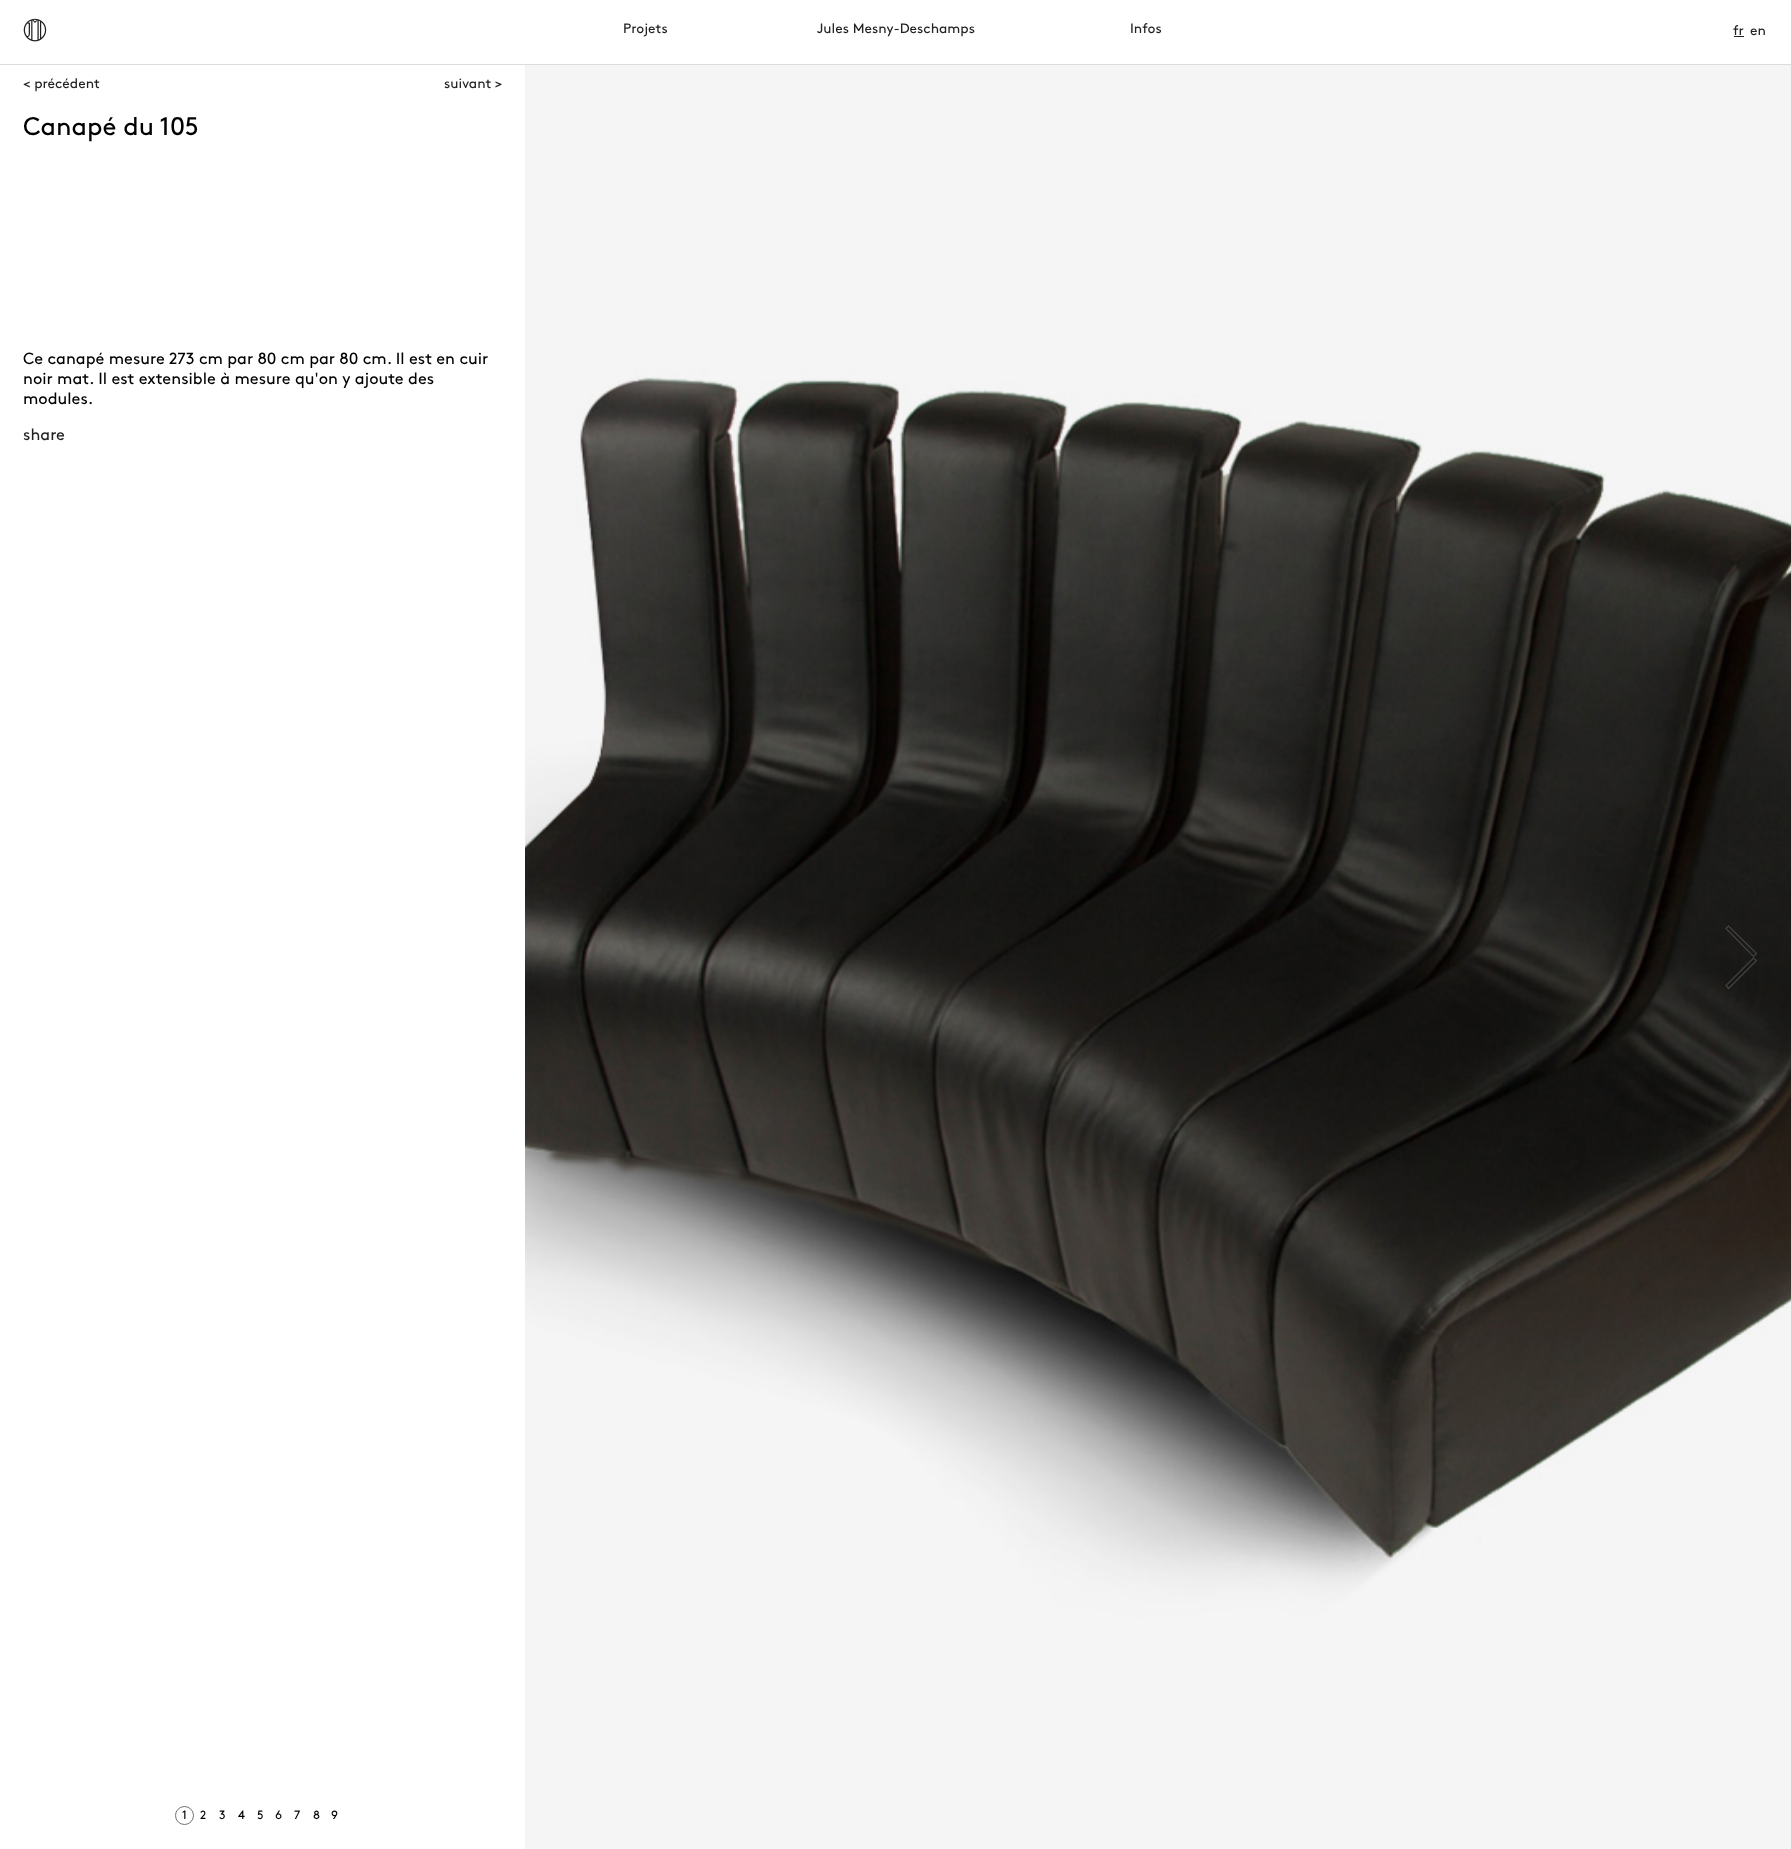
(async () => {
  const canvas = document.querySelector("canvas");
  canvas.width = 1791;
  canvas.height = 1849;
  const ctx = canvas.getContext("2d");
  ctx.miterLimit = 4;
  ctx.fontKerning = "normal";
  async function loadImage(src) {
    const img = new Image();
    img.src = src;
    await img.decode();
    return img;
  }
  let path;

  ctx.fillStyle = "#ffffff";
  ctx.fillRect(0, 0, 1791, 1849);
  ctx.drawImage(await loadImage("img/1.png"), 23, 18, 24, 24);
  ctx.fillStyle = "#dcdcdc";
  ctx.fillRect(0, 64, 1791, 1);
  ctx.fillStyle = "#222222";
  ctx.fillRect(1734, 36, 10, 1);
  ctx.drawImage(await loadImage("img/2.png"), 525, 65, 1266, 1784);
  path = new Path2D("M1728.5 988.5L1726 985.5L1753.5 958L1756.5 960.5ZM1726 928.5L1728.5 926L1756.5 953.5L1753.5 956.5Z");
  ctx.strokeStyle = "#434343";
  ctx.lineWidth = 1.2;
  ctx.stroke(path);
  ctx.beginPath();
  ctx.arc(184.5, 1815.5, 9, 0, Math.PI * 2);
  ctx.strokeStyle = "#737373";
  ctx.lineWidth = 1;
  ctx.stroke();
  ctx.font = "13.75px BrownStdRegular";
  for (const [text, x, y] of [
    ["Projets", 623, 33],
    ["Jules Mesny-Deschamps", 817, 33],
    ["Infos", 1130, 33],
    ["fr", 1733, 35],
    ["en", 1750, 35],
    ["< précédent", 23, 88],
    ["suivant >", 444, 88],
  ]) {
    ctx.fillText(text, x, y);
  }
  ctx.font = "25.5px BrownStdRegular";
  ctx.fillStyle = "#000000";
  ctx.fillText("Canapé du 105", 23, 135);
  ctx.font = "16.25px BrownStdRegular";
  for (const [text, x, y] of [
    ["Ce canapé mesure 273 cm par 80 cm par 80 cm. Il est en cuir", 23, 364],
    ["noir mat. Il est extensible à mesure qu'on y ajoute des", 23, 384],
    ["modules.", 23, 404],
  ]) {
    ctx.fillText(text, x, y);
  }
  ctx.fillStyle = "#222222";
  ctx.fillText("share", 23, 440);
  ctx.letterSpacing = "-1px";
  ctx.font = "12px BrownStdRegular";
  ctx.fillStyle = "#000000";
  for (const [text, x, y] of [
    ["1", 182, 1819],
    ["2", 200, 1819],
    ["3", 219, 1819],
    ["4", 238, 1819],
    ["5", 257, 1819],
    ["6", 275, 1819],
    ["7", 294, 1819],
    ["8", 313, 1819],
    ["9", 331, 1819],
  ]) {
    ctx.fillText(text, x, y);
  }
})();
